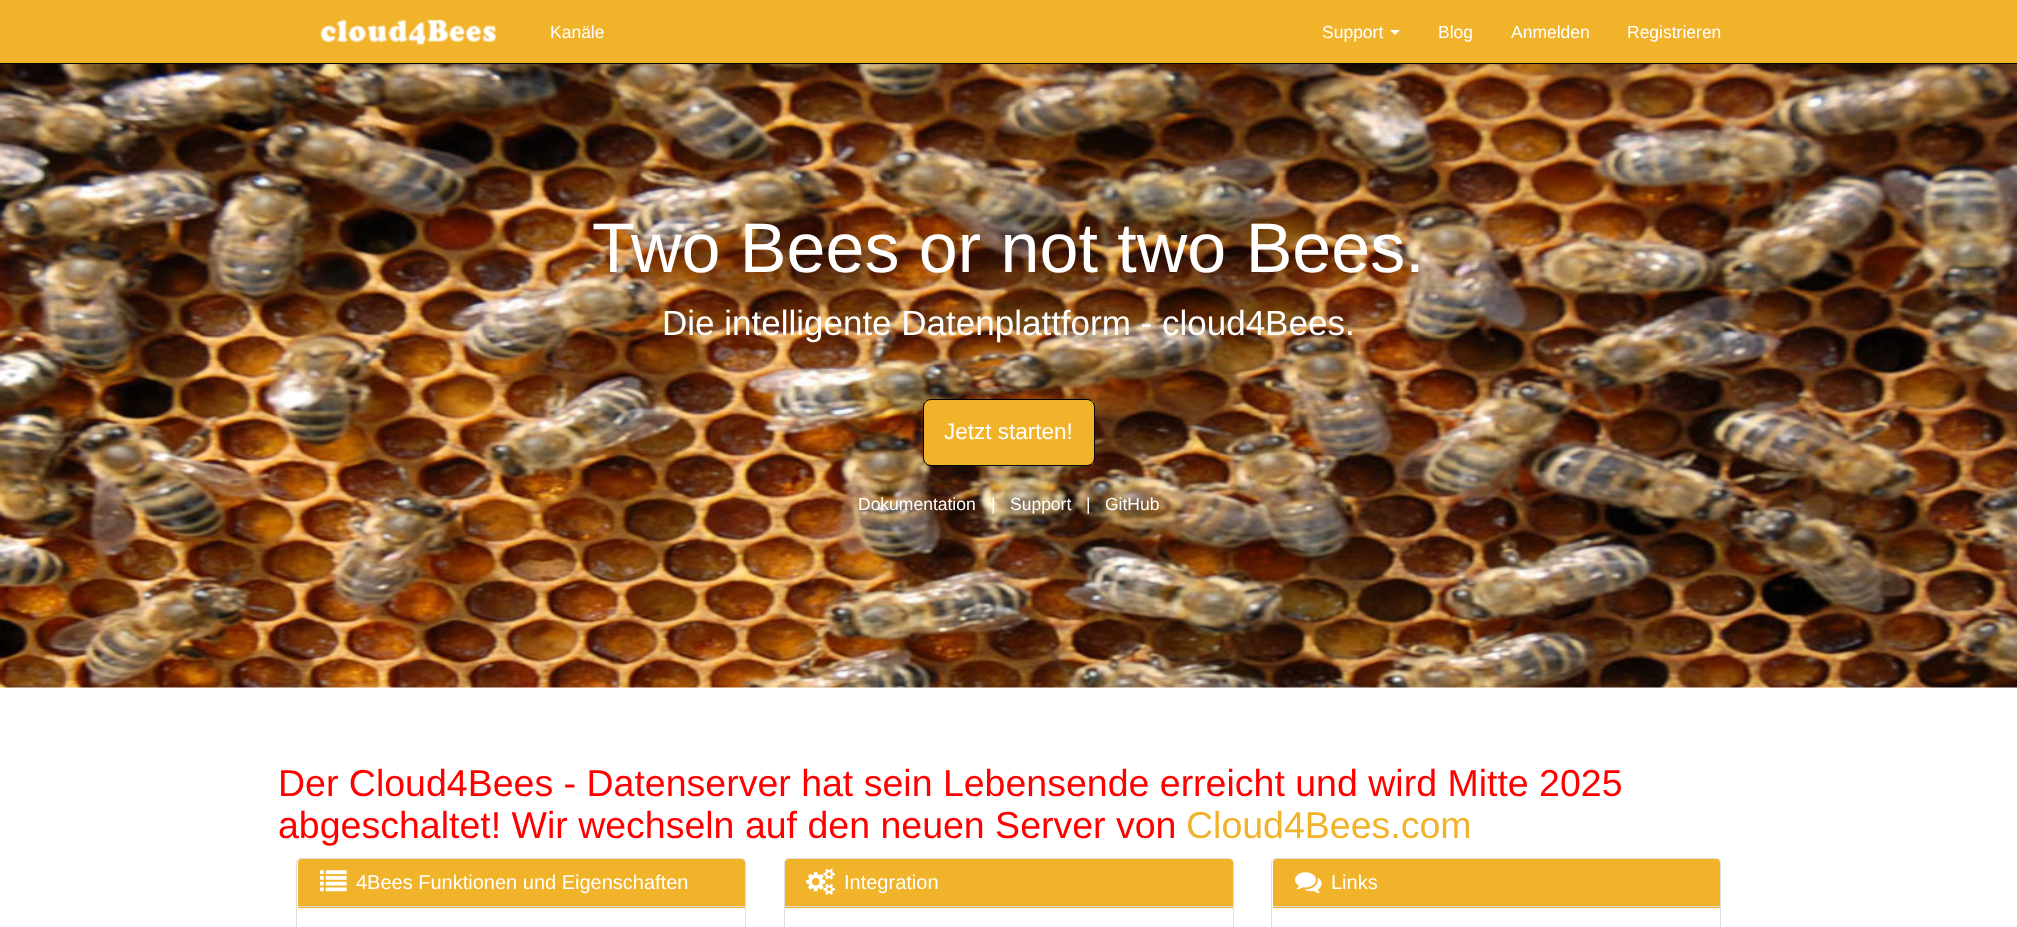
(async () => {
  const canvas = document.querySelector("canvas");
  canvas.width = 2017;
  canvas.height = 927;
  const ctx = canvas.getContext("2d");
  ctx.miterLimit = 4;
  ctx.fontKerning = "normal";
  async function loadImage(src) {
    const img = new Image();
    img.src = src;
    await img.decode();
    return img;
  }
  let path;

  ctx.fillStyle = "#ffffff";
  ctx.fillRect(0, 0, 2017, 927);
  ctx.drawImage(await loadImage("img/2.png"), 0, 64, 2017, 624);
  ctx.fillStyle = "rgba(0, 0, 0, 0.1)";
  ctx.filter = "blur(6px)";
  ctx.beginPath();
  ctx.rect(0, 1, 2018, 64);
  ctx.fill();
  ctx.filter = "none";
  ctx.fillStyle = "#f1b32a";
  ctx.fillRect(0, 0, 2017, 63);
  ctx.fillStyle = "#000000";
  ctx.fillRect(0, 63, 2017, 1);
  ctx.drawImage(await loadImage("img/1.png"), 320, 19, 177, 27);
  ctx.fillStyle = "#ffffff";
  path = new Path2D("M1390 30H1400L1395 35Z");
  ctx.fill(path);
  ctx.save();
  ctx.beginPath();
  ctx.roundRect(923, 399, 172, 67, 8);
  ctx.clip();
  ctx.fillStyle = "#f1b32a";
  ctx.fillRect(924, 400, 170, 65);
  ctx.restore();
  ctx.beginPath();
  ctx.roundRect(923.5, 399.5, 171, 66, 7.5);
  ctx.strokeStyle = "#000000";
  ctx.stroke();
  ctx.beginPath();
  ctx.roundRect(296.5, 858.5, 449, 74, 4.5);
  ctx.strokeStyle = "#dddddd";
  ctx.stroke();
  ctx.fillStyle = "#f1b32a";
  ctx.beginPath();
  ctx.roundRect(298, 859, 447, 49, [4, 4, 0, 0]);
  ctx.fill();
  ctx.fillStyle = "#dddddd";
  ctx.fillRect(298, 906, 447, 1);
  ctx.drawImage(await loadImage("img/3.png"), 320, 870, 27, 22);
  ctx.beginPath();
  ctx.roundRect(784.5, 858.5, 449, 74, 4.5);
  ctx.stroke();
  ctx.fillStyle = "#f1b32a";
  ctx.beginPath();
  ctx.roundRect(785, 859, 448, 49, [4, 4, 0, 0]);
  ctx.fill();
  ctx.fillStyle = "#dddddd";
  ctx.fillRect(785, 906, 448, 1);
  ctx.drawImage(await loadImage("img/4.png"), 806, 868, 29, 27);
  ctx.beginPath();
  ctx.roundRect(1271.5, 858.5, 449, 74, 4.5);
  ctx.stroke();
  ctx.fillStyle = "#f1b32a";
  ctx.beginPath();
  ctx.roundRect(1273, 859, 447, 49, [4, 4, 0, 0]);
  ctx.fill();
  ctx.fillStyle = "#dddddd";
  ctx.fillRect(1273, 906, 447, 1);
  ctx.drawImage(await loadImage("img/5.png"), 1295, 872, 27, 22);
  ctx.font = "17.5px Liberation Sans";
  ctx.fillStyle = "#ffffff";
  for (const [text, x, y] of [
    ["Kanäle", 550, 38],
    ["Support", 1322, 38],
    ["Blog", 1438, 38],
    ["Anmelden", 1511, 38],
    ["Registrieren", 1627, 38],
  ]) {
    ctx.fillText(text, x, y);
  }
  ctx.font = "70px Liberation Sans";
  ctx.fillText("Two Bees or not two Bees.", 592, 272);
  ctx.font = "35px Liberation Sans";
  ctx.fillText("Die intelligente Datenplattform - cloud4Bees.", 662, 335);
  ctx.font = "22.5px Liberation Sans";
  ctx.fillText("Jetzt starten!", 944, 439);
  ctx.font = "17.5px Liberation Sans";
  for (const [text, x, y] of [
    ["Dokumentation", 858, 510],
    ["|", 991, 510],
    ["Support", 1010, 510],
    ["|", 1086, 510],
    ["GitHub", 1105, 510],
  ]) {
    ctx.fillText(text, x, y);
  }
  ctx.font = "37.5px Liberation Sans";
  ctx.fillStyle = "#ff0000";
  ctx.fillText("Der Cloud4Bees - Datenserver hat sein Lebensende erreicht und wird Mitte 2025", 278, 796);
  ctx.fillText("abgeschaltet! Wir wechseln auf den neuen Server von", 278, 838);
  ctx.fillStyle = "#f1b32a";
  ctx.fillText("Cloud4Bees.com", 1186, 838);
  ctx.font = "20px Liberation Sans";
  ctx.fillStyle = "#ffffff";
  for (const [text, x, y] of [
    ["4Bees Funktionen und Eigenschaften", 356, 889],
    ["Integration", 844, 889],
    ["Links", 1331, 889],
  ]) {
    ctx.fillText(text, x, y);
  }
})();
